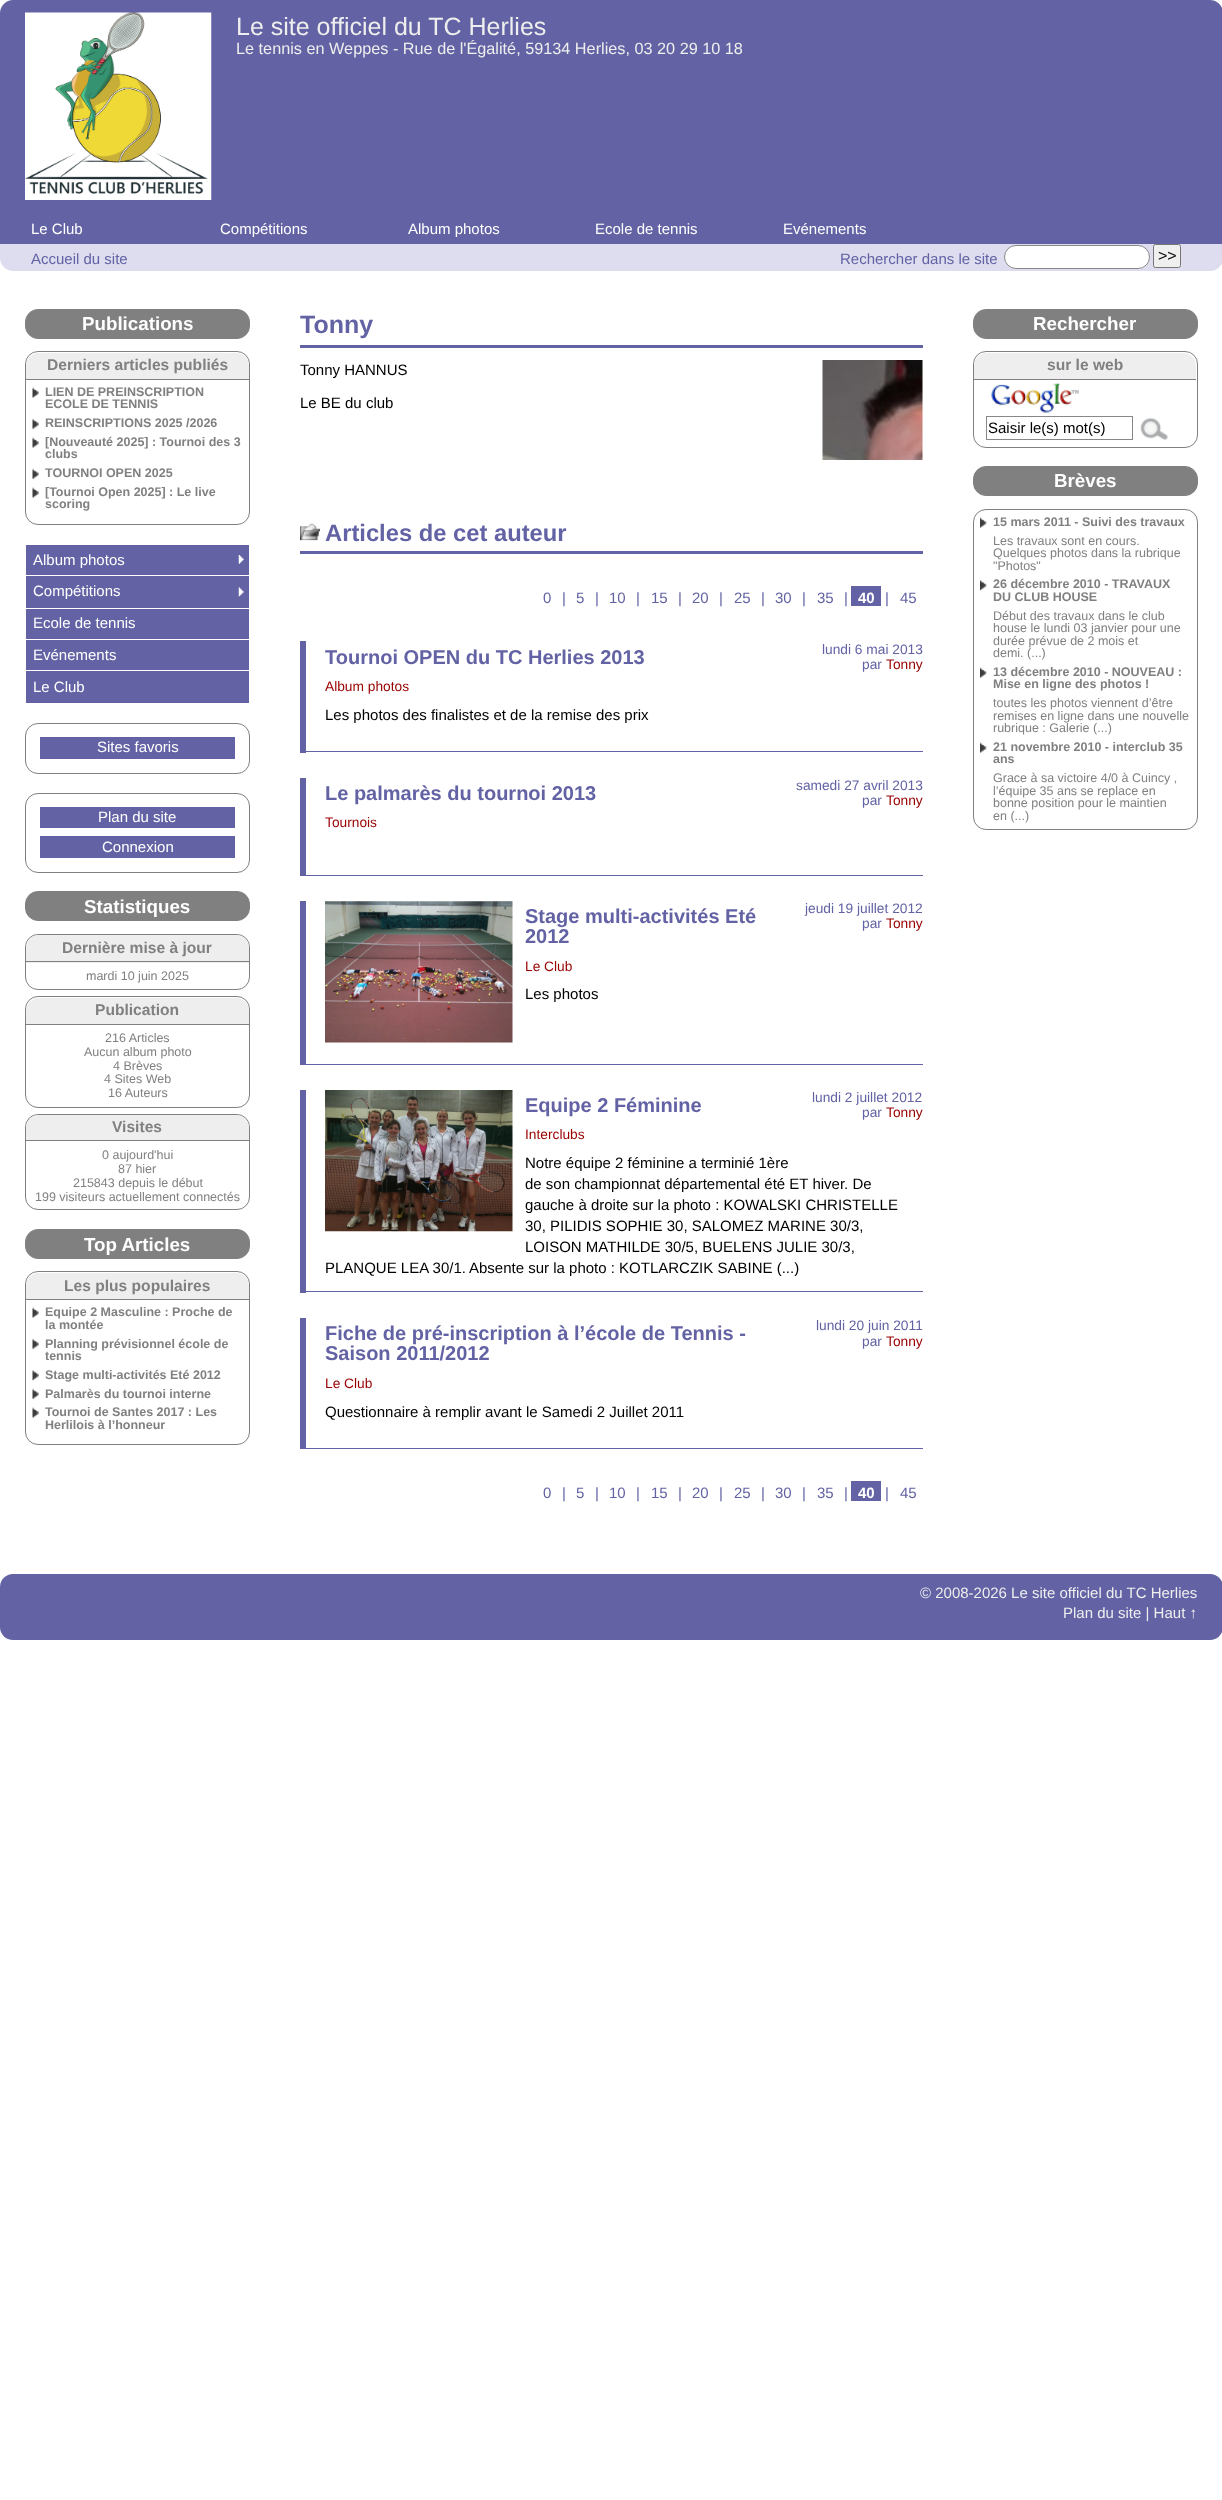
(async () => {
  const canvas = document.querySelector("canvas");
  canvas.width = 1222;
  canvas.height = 2500;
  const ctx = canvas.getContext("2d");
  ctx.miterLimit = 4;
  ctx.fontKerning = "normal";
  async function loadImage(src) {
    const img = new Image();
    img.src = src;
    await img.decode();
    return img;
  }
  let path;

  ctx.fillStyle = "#ffffff";
  ctx.fillRect(0, 0, 1222, 2500);
  ctx.fillStyle = "#6262a4";
  path = new Path2D("M13 0H1210C1217 0 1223 6 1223 13V215H0V13C0 6 6 0 13 0Z");
  ctx.fill(path);
  ctx.drawImage(await loadImage("img/1.png"), 25, 12, 187, 188);
  ctx.fillRect(0, 215, 1222, 29);
  ctx.fillStyle = "#ddddef";
  path = new Path2D("M0 244H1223V258C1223 265 1217 271 1210 271H13C6 271 0 265 0 258Z");
  ctx.fill(path);
  ctx.fillStyle = "#ffffff";
  ctx.beginPath();
  ctx.roundRect(1004.5, 245.5, 145, 23, 11.5);
  ctx.fill();
  ctx.strokeStyle = "#888888";
  ctx.stroke();
  ctx.fillStyle = "#efefef";
  ctx.beginPath();
  ctx.roundRect(1153.5, 244.5, 27, 23, 2);
  ctx.fill();
  ctx.strokeStyle = "#767676";
  ctx.stroke();
  ctx.fillStyle = "#808080";
  ctx.beginPath();
  ctx.roundRect(25.5, 309.5, 224, 29, 12.5);
  ctx.fill();
  ctx.strokeStyle = "#808080";
  ctx.stroke();
  ctx.beginPath();
  ctx.roundRect(25.5, 351.5, 224, 173, 12.5);
  ctx.stroke();
  ctx.fillStyle = "#eeeeee";
  ctx.beginPath();
  ctx.roundRect(26, 353, 223, 27, [13, 13, 0, 0]);
  ctx.fill();
  ctx.fillStyle = "#808080";
  ctx.fillRect(26, 379, 223, 1);
  ctx.drawImage(await loadImage("img/2.png"), 32, 387, 7, 11);
  ctx.drawImage(await loadImage("img/3.png"), 32, 418, 7, 11);
  ctx.drawImage(await loadImage("img/2.png"), 32, 437, 7, 11);
  ctx.drawImage(await loadImage("img/3.png"), 32, 468, 7, 11);
  ctx.drawImage(await loadImage("img/2.png"), 32, 487, 7, 11);
  ctx.fillStyle = "#6262a4";
  ctx.fillRect(26, 609, 223, 94);
  ctx.fillRect(26, 545, 223, 30);
  ctx.drawImage(await loadImage("img/4.png"), 238, 555, 6, 9);
  ctx.fillRect(26, 576, 223, 32);
  ctx.drawImage(await loadImage("img/5.png"), 238, 587, 6, 10);
  ctx.fillStyle = "#ffffff";
  ctx.fillRect(26, 639, 223, 1);
  ctx.fillRect(26, 670, 223, 1);
  ctx.beginPath();
  ctx.roundRect(25.5, 723.5, 224, 50, 12.5);
  ctx.stroke();
  ctx.fillStyle = "#6262a4";
  ctx.fillRect(40, 737, 195, 22);
  ctx.beginPath();
  ctx.roundRect(25.5, 793.5, 224, 79, 12.5);
  ctx.stroke();
  ctx.fillRect(40, 807, 195, 21);
  ctx.fillRect(40, 836, 195, 22);
  ctx.fillStyle = "#808080";
  ctx.beginPath();
  ctx.roundRect(25.5, 891.5, 224, 29, 12.5);
  ctx.fill();
  ctx.stroke();
  ctx.beginPath();
  ctx.roundRect(25.5, 934.5, 224, 55, 12.5);
  ctx.stroke();
  ctx.fillStyle = "#eeeeee";
  ctx.beginPath();
  ctx.roundRect(26, 935, 223, 28, [13, 13, 0, 0]);
  ctx.fill();
  ctx.fillStyle = "#808080";
  ctx.fillRect(26, 961, 223, 1);
  ctx.beginPath();
  ctx.roundRect(25.5, 996.5, 224, 111, 12.5);
  ctx.stroke();
  ctx.fillStyle = "#eeeeee";
  ctx.beginPath();
  ctx.roundRect(26, 998, 223, 27, [13, 13, 0, 0]);
  ctx.fill();
  ctx.fillStyle = "#808080";
  ctx.fillRect(26, 1024, 223, 1);
  ctx.beginPath();
  ctx.roundRect(25.5, 1114.5, 224, 95, 12.5);
  ctx.stroke();
  ctx.fillStyle = "#eeeeee";
  ctx.beginPath();
  ctx.roundRect(26, 1115, 223, 26, [13, 13, 0, 0]);
  ctx.fill();
  ctx.fillStyle = "#808080";
  ctx.fillRect(26, 1140, 223, 1);
  ctx.beginPath();
  ctx.roundRect(25.5, 1229.5, 224, 29, 12.5);
  ctx.fill();
  ctx.stroke();
  ctx.beginPath();
  ctx.roundRect(25.5, 1271.5, 224, 173, 12.5);
  ctx.stroke();
  ctx.fillStyle = "#eeeeee";
  ctx.beginPath();
  ctx.roundRect(26, 1273, 223, 27, [13, 13, 0, 0]);
  ctx.fill();
  ctx.fillStyle = "#808080";
  ctx.fillRect(26, 1299, 223, 1);
  ctx.drawImage(await loadImage("img/2.png"), 32, 1307, 7, 11);
  ctx.drawImage(await loadImage("img/3.png"), 32, 1338, 7, 11);
  ctx.drawImage(await loadImage("img/6.png"), 32, 1370, 7, 11);
  ctx.drawImage(await loadImage("img/3.png"), 32, 1388, 7, 11);
  ctx.drawImage(await loadImage("img/2.png"), 32, 1407, 7, 11);
  ctx.fillStyle = "#6262a4";
  ctx.fillRect(300, 345, 623, 3);
  ctx.drawImage(await loadImage("img/7.png"), 822, 360, 101, 100);
  ctx.drawImage(await loadImage("img/8.png"), 300, 523, 20, 18);
  for (const [x, y, w, h, color] of [
    [300, 551, 623, 3, "#6262a4"],
    [851, 586, 30, 20, "#6262a4"],
    [300, 751, 623, 1, "#6262a4"],
    [300, 641, 6, 112, "#6262a4"],
    [300, 875, 623, 1, "#6262a4"],
    [300, 778, 6, 98, "#6262a4"],
    [300, 1064, 623, 1, "#6262a4"],
    [300, 901, 6, 164, "#6262a4"],
  ]) {
    ctx.fillStyle = color;
    ctx.fillRect(x, y, w, h);
  }
  ctx.drawImage(await loadImage("img/9.png"), 325, 901, 188, 142);
  ctx.fillRect(300, 1291, 623, 1);
  ctx.fillRect(300, 1090, 6, 203);
  ctx.drawImage(await loadImage("img/10.png"), 325, 1090, 188, 142);
  for (const [x, y, w, h, color] of [
    [300, 1448, 623, 1, "#6262a4"],
    [300, 1318, 6, 131, "#6262a4"],
    [851, 1481, 30, 20, "#6262a4"],
  ]) {
    ctx.fillStyle = color;
    ctx.fillRect(x, y, w, h);
  }
  ctx.fillStyle = "#808080";
  ctx.beginPath();
  ctx.roundRect(973.5, 309.5, 224, 29, 12.5);
  ctx.fill();
  ctx.stroke();
  ctx.beginPath();
  ctx.roundRect(973.5, 351.5, 224, 96, 12.5);
  ctx.stroke();
  ctx.fillStyle = "#eeeeee";
  ctx.beginPath();
  ctx.roundRect(974, 353, 222, 27, [13, 13, 0, 0]);
  ctx.fill();
  ctx.fillStyle = "#808080";
  ctx.fillRect(974, 379, 222, 1);
  ctx.drawImage(await loadImage("img/11.png"), 991, 383, 88, 30);
  ctx.strokeStyle = "#888888";
  ctx.strokeRect(986.5, 416.5, 146, 23);
  ctx.drawImage(await loadImage("img/12.png"), 1140, 417, 28, 23);
  ctx.beginPath();
  ctx.roundRect(973.5, 466.5, 224, 29, 12.5);
  ctx.fill();
  ctx.strokeStyle = "#808080";
  ctx.stroke();
  ctx.beginPath();
  ctx.roundRect(973.5, 509.5, 224, 320, 12.5);
  ctx.stroke();
  ctx.drawImage(await loadImage("img/13.png"), 980, 517, 7, 11);
  ctx.drawImage(await loadImage("img/14.png"), 980, 580, 7, 11);
  ctx.drawImage(await loadImage("img/13.png"), 980, 667, 7, 11);
  ctx.drawImage(await loadImage("img/13.png"), 980, 742, 7, 11);
  ctx.fillStyle = "#6262a4";
  ctx.beginPath();
  ctx.roundRect(0, 1574, 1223, 66, 13);
  ctx.fill();
  ctx.font = "25px Liberation Sans";
  ctx.fillStyle = "#eeeeee";
  ctx.fillText("Le site officiel du TC Herlies", 236, 35);
  ctx.font = "16.25px Liberation Sans";
  ctx.fillText("Le tennis en Weppes - Rue de l'Égalité, 59134 Herlies, 03 20 29 10 18", 236, 54);
  ctx.font = "15px Liberation Sans";
  ctx.fillStyle = "#ffffff";
  for (const [text, x, y] of [
    ["Le Club", 31, 234],
    ["Compétitions", 220, 234],
    ["Album photos", 408, 234],
    ["Ecole de tennis", 595, 234],
    ["Evénements", 783, 234],
  ]) {
    ctx.fillText(text, x, y);
  }
  ctx.fillStyle = "#6262a4";
  ctx.fillText("Accueil du site", 31, 264);
  ctx.fillText("Rechercher dans le site", 840, 264);
  ctx.font = "16px Liberation Sans";
  ctx.fillStyle = "#000000";
  ctx.fillText(">>", 1158, 261);
  ctx.font = "bold 18.75px Liberation Sans";
  ctx.fillStyle = "#ffffff";
  ctx.fillText("Publications", 82, 330);
  ctx.font = "bold 15.6px Liberation Sans";
  ctx.fillStyle = "#808080";
  ctx.fillText("Derniers articles publiés", 47, 370);
  ctx.font = "bold 12.5px Liberation Sans";
  for (const [text, x, y] of [
    ["LIEN DE PREINSCRIPTION", 45, 396],
    ["ECOLE DE TENNIS", 45, 408],
    ["REINSCRIPTIONS 2025 /2026", 45, 427],
    ["[Nouveauté 2025] : Tournoi des 3", 45, 446],
    ["clubs", 45, 458],
    ["TOURNOI OPEN 2025", 45, 477],
    ["[Tournoi Open 2025] : Le live", 45, 496],
    ["scoring", 45, 508],
  ]) {
    ctx.fillText(text, x, y);
  }
  ctx.font = "15px Liberation Sans";
  ctx.fillStyle = "#ffffff";
  for (const [text, x, y] of [
    ["Album photos", 33, 565],
    ["Compétitions", 33, 596],
    ["Ecole de tennis", 33, 628],
    ["Evénements", 33, 660],
    ["Le Club", 33, 692],
    ["Sites favoris", 97, 752],
    ["Plan du site", 98, 822],
    ["Connexion", 102, 852],
  ]) {
    ctx.fillText(text, x, y);
  }
  ctx.font = "bold 18.75px Liberation Sans";
  ctx.fillText("Statistiques", 84, 913);
  ctx.font = "bold 15.6px Liberation Sans";
  ctx.fillStyle = "#808080";
  ctx.fillText("Dernière mise à jour", 62, 953);
  ctx.font = "12.5px Liberation Sans";
  ctx.fillText("mardi 10 juin 2025", 86, 980);
  ctx.font = "bold 15.6px Liberation Sans";
  ctx.fillText("Publication", 95, 1015);
  ctx.font = "12.5px Liberation Sans";
  for (const [text, x, y] of [
    ["216 Articles", 105, 1042],
    ["Aucun album photo", 84, 1056],
    ["4 Brèves", 113, 1070],
    ["4 Sites Web", 104, 1083],
    ["16 Auteurs", 108, 1097],
  ]) {
    ctx.fillText(text, x, y);
  }
  ctx.font = "bold 15.6px Liberation Sans";
  ctx.fillText("Visites", 112, 1132);
  ctx.font = "12.5px Liberation Sans";
  for (const [text, x, y] of [
    ["0 aujourd'hui", 102, 1159],
    ["87 hier", 118, 1173],
    ["215843 depuis le début", 73, 1187],
    ["199 visiteurs actuellement connectés", 35, 1201],
  ]) {
    ctx.fillText(text, x, y);
  }
  ctx.font = "bold 18.75px Liberation Sans";
  ctx.fillStyle = "#ffffff";
  ctx.fillText("Top Articles", 84, 1251);
  ctx.font = "bold 15.6px Liberation Sans";
  ctx.fillStyle = "#808080";
  ctx.fillText("Les plus populaires", 64, 1291);
  ctx.font = "bold 12.5px Liberation Sans";
  for (const [text, x, y] of [
    ["Equipe 2 Masculine : Proche de", 45, 1316],
    ["la montée", 45, 1329],
    ["Planning prévisionnel école de", 45, 1348],
    ["tennis", 45, 1360],
    ["Stage multi-activités Eté 2012", 45, 1379],
    ["Palmarès du tournoi interne", 45, 1398],
    ["Tournoi de Santes 2017 : Les", 45, 1416],
    ["Herlilois à l’honneur", 45, 1429],
  ]) {
    ctx.fillText(text, x, y);
  }
  ctx.font = "bold 25px Liberation Sans";
  ctx.fillStyle = "#6262a4";
  ctx.fillText("Tonny", 300, 333);
  ctx.font = "15px Liberation Sans";
  ctx.fillStyle = "#000000";
  ctx.fillText("Tonny HANNUS", 300, 375);
  ctx.fillText("Le BE du club", 300, 408);
  ctx.font = "bold 23.75px Liberation Sans";
  ctx.fillStyle = "#6262a4";
  ctx.fillText("Articles de cet auteur", 325, 541);
  ctx.font = "15px Liberation Sans";
  for (const [text, x, y] of [
    ["0", 543, 603],
    ["|", 562, 603],
    ["5", 576, 603],
    ["|", 595, 603],
    ["10", 609, 603],
    ["|", 636, 603],
    ["15", 651, 603],
    ["|", 678, 603],
    ["20", 692, 603],
    ["|", 719, 603],
    ["25", 734, 603],
    ["|", 761, 603],
    ["30", 775, 603],
    ["|", 802, 603],
    ["35", 817, 603],
    ["|", 844, 603],
  ]) {
    ctx.fillText(text, x, y);
  }
  ctx.font = "bold 15px Liberation Sans";
  ctx.fillStyle = "#ffffff";
  ctx.fillText("40", 858, 603);
  ctx.font = "15px Liberation Sans";
  ctx.fillStyle = "#6262a4";
  ctx.fillText("|", 885, 603);
  ctx.fillText("45", 900, 603);
  ctx.font = "bold 20px Liberation Sans";
  ctx.fillText("Tournoi OPEN du TC Herlies 2013", 325, 664);
  ctx.font = "13.75px Liberation Sans";
  ctx.fillText("lundi 6 mai 2013", 822, 654);
  ctx.fillText("par", 862, 669);
  ctx.fillStyle = "#990000";
  ctx.fillText("Tonny", 886, 669);
  ctx.fillText("Album photos", 325, 691);
  ctx.font = "15px Liberation Sans";
  ctx.fillStyle = "#000000";
  ctx.fillText("Les photos des finalistes et de la remise des prix", 325, 720);
  ctx.font = "bold 20px Liberation Sans";
  ctx.fillStyle = "#6262a4";
  ctx.fillText("Le palmarès du tournoi 2013", 325, 800);
  ctx.font = "13.75px Liberation Sans";
  ctx.fillText("samedi 27 avril 2013", 796, 790);
  ctx.fillText("par", 862, 805);
  ctx.fillStyle = "#990000";
  ctx.fillText("Tonny", 886, 805);
  ctx.fillText("Tournois", 325, 827);
  ctx.font = "bold 20px Liberation Sans";
  ctx.fillStyle = "#6262a4";
  ctx.fillText("Stage multi-activités Eté", 525, 923);
  ctx.fillText("2012", 525, 943);
  ctx.font = "13.75px Liberation Sans";
  ctx.fillText("jeudi 19 juillet 2012", 805, 913);
  ctx.fillText("par", 862, 928);
  ctx.fillStyle = "#990000";
  ctx.fillText("Tonny", 886, 928);
  ctx.fillText("Le Club", 525, 971);
  ctx.font = "15px Liberation Sans";
  ctx.fillStyle = "#000000";
  ctx.fillText("Les photos", 525, 999);
  ctx.font = "bold 20px Liberation Sans";
  ctx.fillStyle = "#6262a4";
  ctx.fillText("Equipe 2 Féminine", 525, 1112);
  ctx.font = "13.75px Liberation Sans";
  ctx.fillText("lundi 2 juillet 2012", 812, 1102);
  ctx.fillText("par", 862, 1117);
  ctx.fillStyle = "#990000";
  ctx.fillText("Tonny", 886, 1117);
  ctx.fillText("Interclubs", 525, 1139);
  ctx.font = "15px Liberation Sans";
  ctx.fillStyle = "#000000";
  for (const [text, x, y] of [
    ["Notre équipe 2 féminine a terminié 1ère", 525, 1168],
    ["de son championnat départemental été ET hiver. De", 525, 1189],
    ["gauche à droite sur la photo : KOWALSKI CHRISTELLE", 525, 1210],
    ["30, PILIDIS SOPHIE 30, SALOMEZ MARINE 30/3,", 525, 1231],
    ["LOISON MATHILDE 30/5, BUELENS JULIE 30/3,", 525, 1252],
    ["PLANQUE LEA 30/1.", 325, 1273],
    ["Absente sur la photo : KOTLARCZIK SABINE (...)", 469, 1273],
  ]) {
    ctx.fillText(text, x, y);
  }
  ctx.font = "bold 20px Liberation Sans";
  ctx.fillStyle = "#6262a4";
  ctx.fillText("Fiche de pré-inscription à l’école de Tennis -", 325, 1340);
  ctx.fillText("Saison 2011/2012", 325, 1360);
  ctx.font = "13.75px Liberation Sans";
  ctx.fillText("lundi 20 juin 2011", 816, 1330);
  ctx.fillText("par", 862, 1346);
  ctx.fillStyle = "#990000";
  ctx.fillText("Tonny", 886, 1346);
  ctx.fillText("Le Club", 325, 1388);
  ctx.font = "15px Liberation Sans";
  ctx.fillStyle = "#000000";
  ctx.fillText("Questionnaire à remplir avant le Samedi 2 Juillet 2011", 325, 1417);
  ctx.fillStyle = "#6262a4";
  for (const [text, x, y] of [
    ["0", 543, 1498],
    ["|", 562, 1498],
    ["5", 576, 1498],
    ["|", 595, 1498],
    ["10", 609, 1498],
    ["|", 636, 1498],
    ["15", 651, 1498],
    ["|", 678, 1498],
    ["20", 692, 1498],
    ["|", 719, 1498],
    ["25", 734, 1498],
    ["|", 761, 1498],
    ["30", 775, 1498],
    ["|", 802, 1498],
    ["35", 817, 1498],
    ["|", 844, 1498],
  ]) {
    ctx.fillText(text, x, y);
  }
  ctx.font = "bold 15px Liberation Sans";
  ctx.fillStyle = "#ffffff";
  ctx.fillText("40", 858, 1498);
  ctx.font = "15px Liberation Sans";
  ctx.fillStyle = "#6262a4";
  ctx.fillText("|", 885, 1498);
  ctx.fillText("45", 900, 1498);
  ctx.font = "bold 18.75px Liberation Sans";
  ctx.fillStyle = "#ffffff";
  ctx.fillText("Rechercher", 1033, 330);
  ctx.font = "bold 15.6px Liberation Sans";
  ctx.fillStyle = "#808080";
  ctx.fillText("sur le web", 1047, 370);
  ctx.save();
  ctx.beginPath();
  ctx.rect(988, 419, 143, 17);
  ctx.clip();
  ctx.font = "15px Liberation Sans";
  ctx.fillStyle = "#000000";
  ctx.fillText("Saisir le(s) mot(s)", 988, 433);
  ctx.restore();
  ctx.font = "bold 18.75px Liberation Sans";
  ctx.fillStyle = "#ffffff";
  ctx.fillText("Brèves", 1054, 487);
  ctx.font = "bold 12.5px Liberation Sans";
  ctx.fillStyle = "#808080";
  ctx.fillText("15 mars 2011 - Suivi des travaux", 993, 526);
  ctx.font = "12.5px Liberation Sans";
  for (const [text, x, y] of [
    ["Les travaux sont en cours.", 993, 545],
    ["Quelques photos dans la rubrique", 993, 557],
    ["\"Photos\"", 993, 570],
  ]) {
    ctx.fillText(text, x, y);
  }
  ctx.font = "bold 12.5px Liberation Sans";
  ctx.fillText("26 décembre 2010 - TRAVAUX", 993, 588);
  ctx.fillText("DU CLUB HOUSE", 993, 601);
  ctx.font = "12.5px Liberation Sans";
  for (const [text, x, y] of [
    ["Début des travaux dans le club", 993, 620],
    ["house le lundi 03 janvier pour une", 993, 632],
    ["durée prévue de 2 mois et", 993, 645],
    ["demi. (...)", 993, 657],
  ]) {
    ctx.fillText(text, x, y);
  }
  ctx.font = "bold 12.5px Liberation Sans";
  ctx.fillText("13 décembre 2010 - NOUVEAU :", 993, 676);
  ctx.fillText("Mise en ligne des photos !", 993, 688);
  ctx.font = "12.5px Liberation Sans";
  for (const [text, x, y] of [
    ["toutes les photos viennent d’être", 993, 707],
    ["remises en ligne dans une nouvelle", 993, 720],
    ["rubrique : Galerie (...)", 993, 732],
  ]) {
    ctx.fillText(text, x, y);
  }
  ctx.font = "bold 12.5px Liberation Sans";
  ctx.fillText("21 novembre 2010 - interclub 35", 993, 751);
  ctx.fillText("ans", 993, 763);
  ctx.font = "12.5px Liberation Sans";
  for (const [text, x, y] of [
    ["Grace à sa victoire 4/0 à Cuincy ,", 993, 782],
    ["l’équipe 35 ans se replace en", 993, 795],
    ["bonne position pour le maintien", 993, 807],
    ["en (...)", 993, 820],
  ]) {
    ctx.fillText(text, x, y);
  }
  ctx.font = "15px Liberation Sans";
  ctx.fillStyle = "#eeeeee";
  ctx.fillText("© 2008-2026 Le site officiel du TC Herlies", 920, 1598);
  ctx.fillText("Plan du site | Haut ↑", 1063, 1618);
})();
